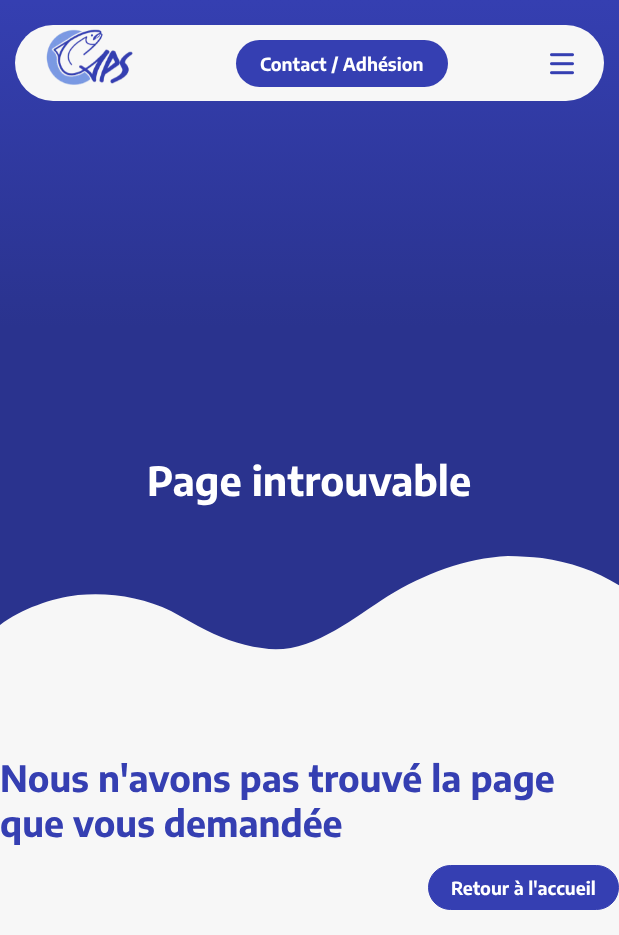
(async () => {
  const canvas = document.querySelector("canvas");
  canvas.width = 619;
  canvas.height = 935;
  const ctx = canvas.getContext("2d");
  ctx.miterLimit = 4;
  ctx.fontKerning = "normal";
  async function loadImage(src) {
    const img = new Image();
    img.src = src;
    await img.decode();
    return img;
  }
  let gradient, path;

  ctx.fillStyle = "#f7f7f7";
  ctx.fillRect(0, 0, 619, 935);
  gradient = ctx.createLinearGradient(309, 0, 310, 655);
  gradient.addColorStop(0, "#353fb1");
  gradient.addColorStop(0.5, "#2a338e");
  ctx.fillStyle = gradient;
  ctx.fillRect(0, 0, 619, 650);
  ctx.fillStyle = "#f7f7f7";
  ctx.beginPath();
  ctx.roundRect(15, 25, 589, 76, 38);
  ctx.fill();
  ctx.drawImage(await loadImage("img/1.png"), 46, 29, 87, 56);
  ctx.fillStyle = "#353fb2";
  ctx.beginPath();
  ctx.roundRect(236, 40, 212, 47, 23.5);
  ctx.fill();
  ctx.drawImage(await loadImage("img/2.png"), 550, 53, 24, 22);
  ctx.fillStyle = "#f7f7f7";
  path = new Path2D("M262 648C307 657 352 619 388 596C424 574 465 558 508 556C520 556 531 557 542 558C570 562 597 571 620 586V655H0V625C21 609 52 598 78 595C109 592 143 597 171 611L198 626C219 637 238 645 262 648Z");
  ctx.fill(path);
  ctx.fillStyle = "#353fb2";
  ctx.beginPath();
  ctx.roundRect(428.5, 865.5, 190, 44, 22);
  ctx.fill();
  ctx.strokeStyle = "#353fb2";
  ctx.stroke();
  ctx.font = "bold 18px Encode Sans Condensed";
  ctx.fillStyle = "#ffffff";
  ctx.fillText("Contact / Adhésion", 260, 71);
  ctx.font = "bold 40px Encode Sans Condensed";
  ctx.fillText("Page introuvable", 147, 496);
  ctx.font = "bold 36px Encode Sans Condensed";
  ctx.fillStyle = "#353fb2";
  ctx.fillText("Nous n'avons pas trouvé la page", 0, 792);
  ctx.fillText("que vous demandée", 0, 837);
  ctx.font = "bold 18px Encode Sans Condensed";
  ctx.fillStyle = "#ffffff";
  ctx.fillText("Retour à l'accueil", 451, 895);
})();
